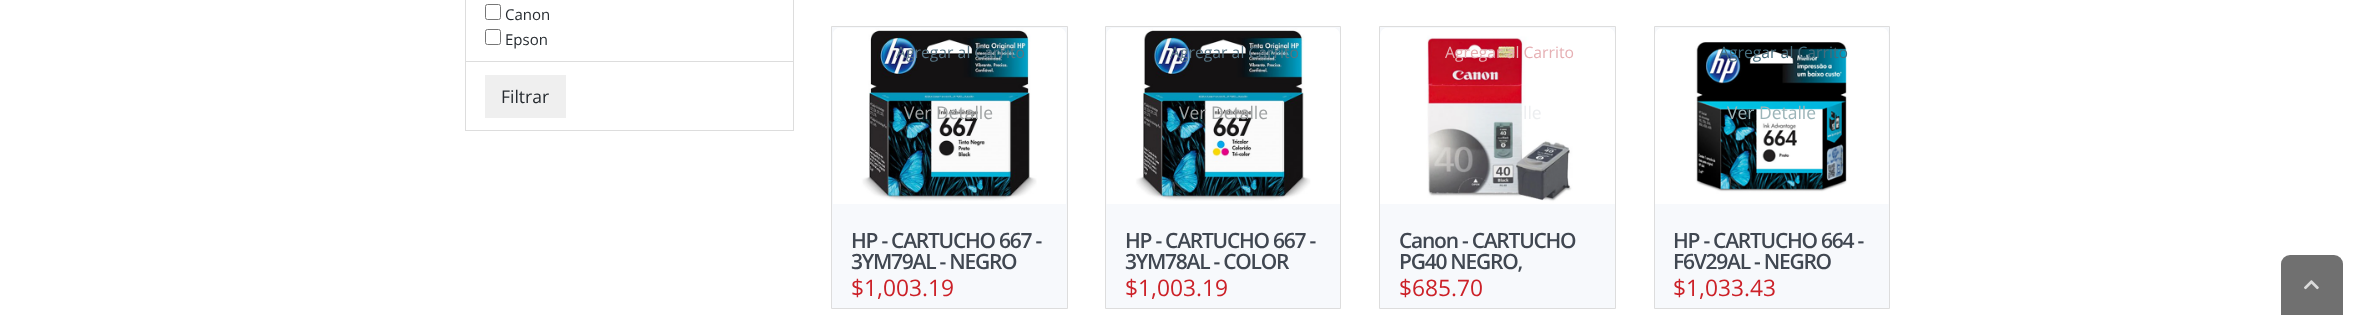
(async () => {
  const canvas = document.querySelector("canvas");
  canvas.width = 2354;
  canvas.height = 315;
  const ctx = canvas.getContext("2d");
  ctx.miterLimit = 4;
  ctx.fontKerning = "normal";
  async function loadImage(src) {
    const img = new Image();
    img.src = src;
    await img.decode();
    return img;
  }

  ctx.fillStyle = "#ffffff";
  ctx.fillRect(0, 0, 2354, 315);
  ctx.strokeStyle = "#dddddd";
  ctx.strokeRect(465.5, -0.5, 328, 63);
  ctx.beginPath();
  ctx.roundRect(485.5, 4.5, 15, 15, 2);
  ctx.strokeStyle = "#767676";
  ctx.stroke();
  ctx.beginPath();
  ctx.roundRect(485.5, 29.5, 15, 15, 2);
  ctx.stroke();
  ctx.fillRect(466, 62, 327, 1);
  ctx.strokeStyle = "#dddddd";
  ctx.strokeRect(465.5, 61.5, 328, 69);
  ctx.fillStyle = "#efefef";
  ctx.fillRect(485, 75, 81, 43);
  ctx.fillStyle = "#f7f9fc";
  ctx.beginPath();
  ctx.rect(831.5, 26.5, 236, 282);
  ctx.fill();
  ctx.stroke();
  ctx.drawImage(await loadImage("img/1.png"), 833, 28, 233, 176);
  ctx.beginPath();
  ctx.rect(1105.5, 26.5, 235, 282);
  ctx.fill();
  ctx.stroke();
  ctx.drawImage(await loadImage("img/2.png"), 1106, 28, 234, 176);
  ctx.beginPath();
  ctx.rect(1379.5, 26.5, 236, 282);
  ctx.fill();
  ctx.stroke();
  ctx.drawImage(await loadImage("img/3.png"), 1380, 28, 235, 176);
  ctx.beginPath();
  ctx.rect(1654.5, 26.5, 235, 282);
  ctx.fill();
  ctx.stroke();
  ctx.drawImage(await loadImage("img/4.png"), 1655, 28, 234, 176);
  ctx.fillStyle = "#707070";
  ctx.beginPath();
  ctx.roundRect(2281, 255, 62, 60, [9, 9, 0, 0]);
  ctx.fill();
  ctx.drawImage(await loadImage("img/5.png"), 2304, 280, 15, 10);
  ctx.font = "15px Open Sans";
  ctx.fillStyle = "#252a2f";
  ctx.fillText("Canon", 505, 20);
  ctx.fillText("Epson", 505, 45);
  ctx.font = "17.5px Open Sans";
  ctx.fillText("Filtrar", 501, 103);
  ctx.font = "15.75px Open Sans";
  ctx.fillStyle = "#577483";
  ctx.fillText("Agregar al Carrito", 896, 58);
  ctx.font = "17.5px Open Sans";
  ctx.fillStyle = "#9fa2a3";
  ctx.fillText("Ver Detalle", 904, 119);
  ctx.letterSpacing = "-1.25px";
  ctx.font = "600 21px Open Sans";
  ctx.fillStyle = "#404751";
  ctx.fillText("HP - CARTUCHO 667 -", 851, 248);
  ctx.fillText("3YM79AL - NEGRO", 851, 269);
  ctx.letterSpacing = "0px";
  ctx.font = "22.75px Open Sans";
  ctx.fillStyle = "#cc2128";
  ctx.fillText("$1,003.19", 851, 296);
  ctx.font = "15.75px Open Sans";
  ctx.fillStyle = "#577483";
  ctx.fillText("Agregar al Carrito", 1170, 58);
  ctx.font = "17.5px Open Sans";
  ctx.fillStyle = "#9fa2a3";
  ctx.fillText("Ver Detalle", 1179, 119);
  ctx.letterSpacing = "-1.25px";
  ctx.font = "600 21px Open Sans";
  ctx.fillStyle = "#404751";
  ctx.fillText("HP - CARTUCHO 667 -", 1125, 248);
  ctx.fillText("3YM78AL - COLOR", 1125, 269);
  ctx.letterSpacing = "0px";
  ctx.font = "22.75px Open Sans";
  ctx.fillStyle = "#cc2128";
  ctx.fillText("$1,003.19", 1125, 296);
  ctx.font = "15.75px Open Sans";
  ctx.fillStyle = "#e6b0b4";
  ctx.fillText("Agregar al Carrito", 1445, 58);
  ctx.font = "17.5px Open Sans";
  ctx.fillStyle = "#eceef0";
  ctx.fillText("lle", 1523, 119);
  ctx.letterSpacing = "-1.25px";
  ctx.font = "600 21px Open Sans";
  ctx.fillStyle = "#404751";
  ctx.fillText("Canon - CARTUCHO", 1399, 248);
  ctx.fillText("PG40 NEGRO,", 1399, 269);
  ctx.letterSpacing = "0px";
  ctx.font = "22.75px Open Sans";
  ctx.fillStyle = "#cc2128";
  ctx.fillText("$685.70", 1399, 296);
  ctx.font = "15.75px Open Sans";
  ctx.fillStyle = "#456c7c";
  ctx.fillText("Agregar al Carrito", 1719, 58);
  ctx.font = "17.5px Open Sans";
  ctx.fillStyle = "#9cb5b9";
  ctx.fillText("Ver Detalle", 1727, 119);
  ctx.letterSpacing = "-1.25px";
  ctx.font = "600 21px Open Sans";
  ctx.fillStyle = "#404751";
  ctx.fillText("HP - CARTUCHO 664 -", 1673, 248);
  ctx.fillText("F6V29AL - NEGRO", 1673, 269);
  ctx.letterSpacing = "0px";
  ctx.font = "22.75px Open Sans";
  ctx.fillStyle = "#cc2128";
  ctx.fillText("$1,033.43", 1673, 296);
})();
